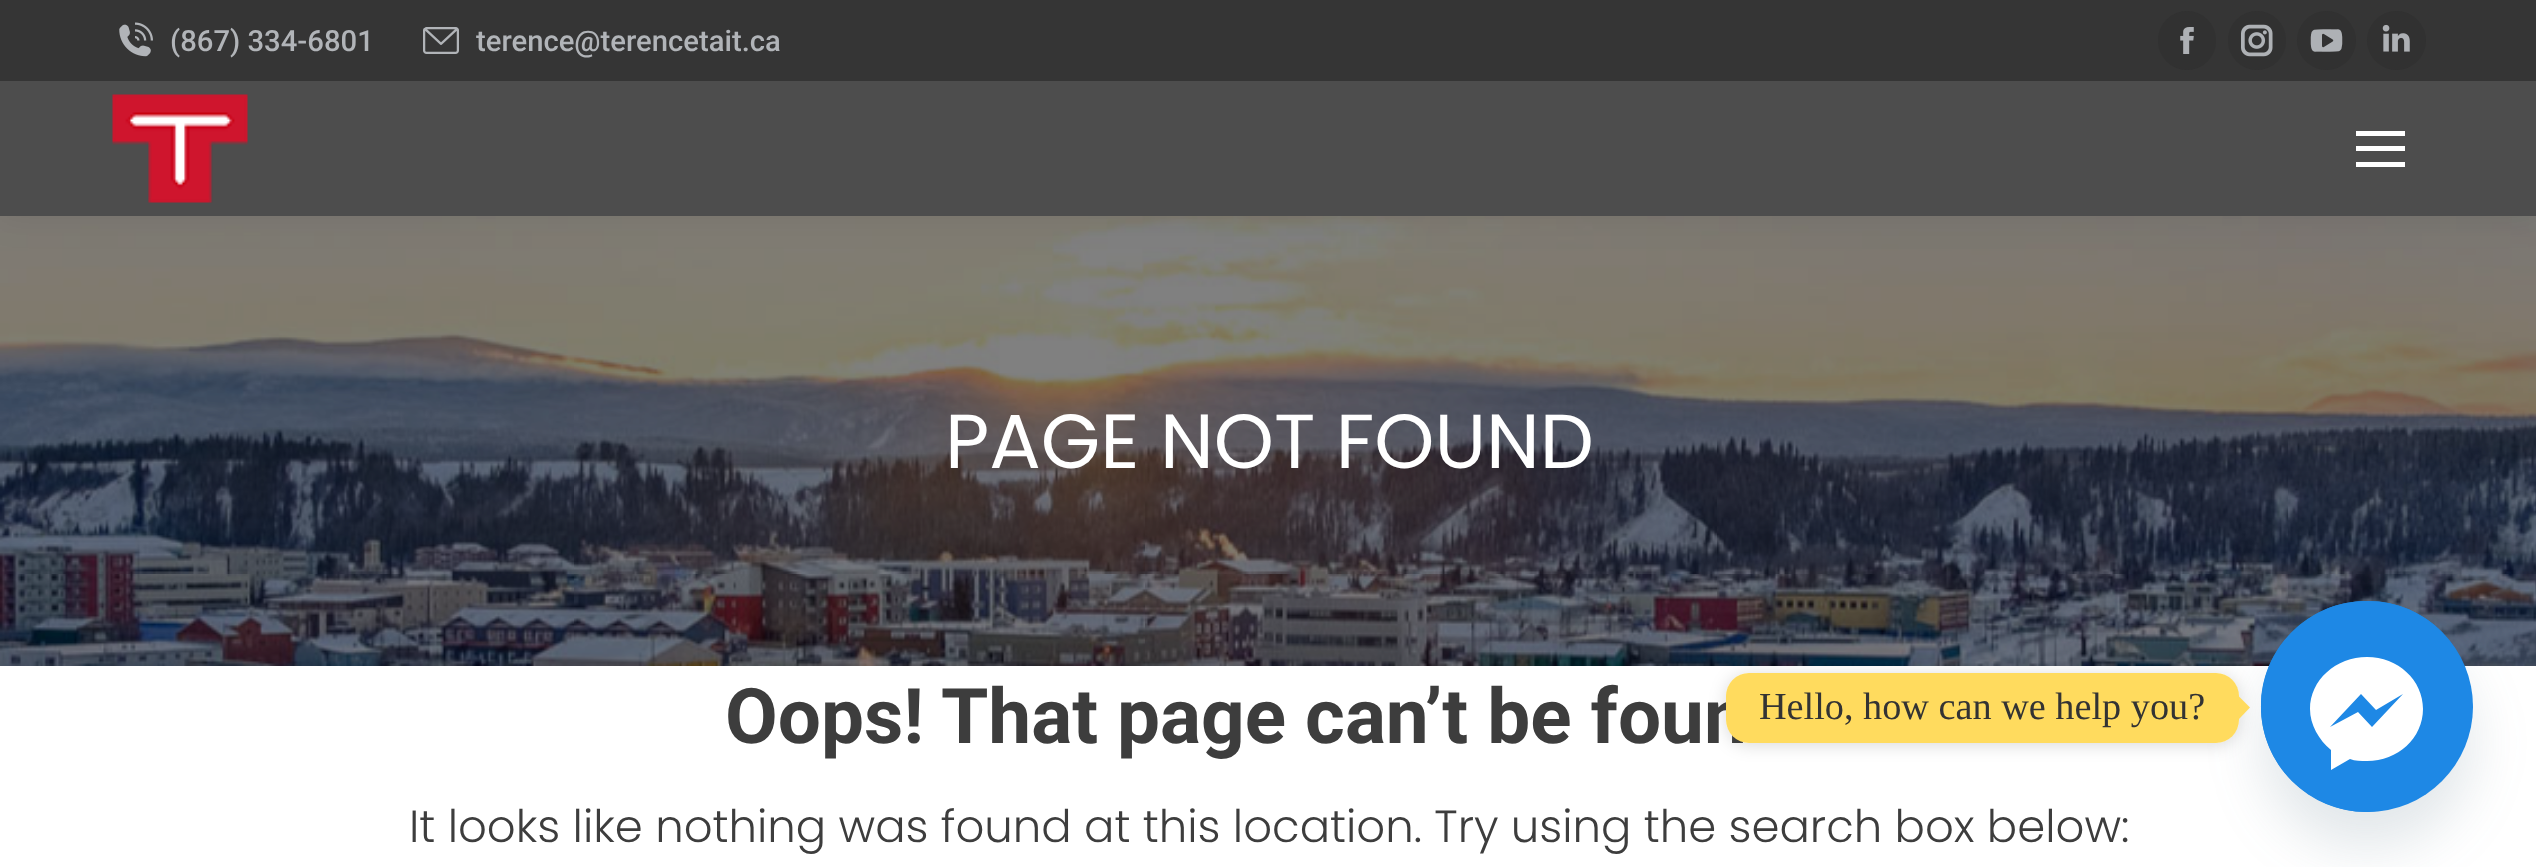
(async () => {
  const canvas = document.querySelector("canvas");
  canvas.width = 2536;
  canvas.height = 867;
  const ctx = canvas.getContext("2d");
  ctx.miterLimit = 4;
  ctx.fontKerning = "normal";
  async function loadImage(src) {
    const img = new Image();
    img.src = src;
    await img.decode();
    return img;
  }
  let path;

  ctx.fillStyle = "#ffffff";
  ctx.fillRect(0, 0, 2536, 867);
  ctx.drawImage(await loadImage("img/8.png"), 0, 216, 2536, 450);
  ctx.fillStyle = "rgba(0, 0, 0, 0.07)";
  ctx.filter = "blur(17px)";
  ctx.beginPath();
  ctx.rect(-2, -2, 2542, 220);
  ctx.fill();
  ctx.filter = "none";
  ctx.fillStyle = "#4d4d4d";
  ctx.fillRect(0, 81, 2536, 135);
  ctx.fillStyle = "#353535";
  ctx.fillRect(0, 0, 2536, 81);
  ctx.drawImage(await loadImage("img/1.png"), 119, 22, 34, 35);
  ctx.drawImage(await loadImage("img/2.png"), 423, 27, 36, 27);
  ctx.fillStyle = "#313131";
  ctx.beginPath();
  ctx.roundRect(2158, 11, 58, 59, 29);
  ctx.fill();
  ctx.drawImage(await loadImage("img/3.png"), 2180, 27, 14, 27);
  ctx.beginPath();
  ctx.roundRect(2228, 11, 58, 59, 29);
  ctx.fill();
  ctx.drawImage(await loadImage("img/4.png"), 2241, 24, 32, 33);
  ctx.beginPath();
  ctx.arc(2326.5, 40.5, 29.5, 0, Math.PI * 2);
  ctx.fill();
  ctx.drawImage(await loadImage("img/5.png"), 2310, 29, 33, 23);
  ctx.beginPath();
  ctx.arc(2396.5, 40.5, 29.5, 0, Math.PI * 2);
  ctx.fill();
  ctx.drawImage(await loadImage("img/6.png"), 2382, 24, 28, 28);
  ctx.drawImage(await loadImage("img/7.png"), 112, 94, 136, 109);
  for (const [x, y, w, h, color] of [
    [2356, 131, 49, 5, "#ffffff"],
    [2356, 146, 49, 5, "#ffffff"],
    [2356, 162, 49, 5, "#ffffff"],
  ]) {
    ctx.fillStyle = color;
    ctx.fillRect(x, y, w, h);
  }
  ctx.fillStyle = "rgba(73, 104, 126, 0.16)";
  ctx.filter = "blur(27px)";
  ctx.beginPath();
  ctx.roundRect(2261, 637, 212, 211, 105.5);
  ctx.fill();
  ctx.filter = "none";
  ctx.fillStyle = "#1e88e5";
  ctx.beginPath();
  ctx.roundRect(2261, 601, 212, 211, 105.5);
  ctx.fill();
  ctx.save();
  ctx.beginPath();
  ctx.rect(2261, 601, 212, 211);
  ctx.clip();
  path = new Path2D("M2366 601C2346 601 2325 607 2308 619C2252 656 2245 734 2292 781C2312 800 2339 812 2366 812C2387 811 2408 805 2425 793C2442 782 2456 766 2464 747C2493 677 2442 601 2368 601Z");
  ctx.fill(path);
  ctx.restore();
  ctx.save();
  path = new Path2D("M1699 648H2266V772H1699ZM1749 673H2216C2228.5 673 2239 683.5 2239 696V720C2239 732.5 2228.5 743 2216 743H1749C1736.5 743 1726 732.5 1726 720V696C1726 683.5 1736.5 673 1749 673Z");
  ctx.clip(path, "evenodd");
  ctx.fillStyle = "rgba(0, 0, 0, 0.15)";
  ctx.filter = "blur(8.5px)";
  ctx.beginPath();
  ctx.roundRect(1726, 675, 513, 70, 23);
  ctx.fill();
  ctx.filter = "none";
  ctx.restore();
  ctx.fillStyle = "#ffdb5e";
  path = new Path2D("M2239 719V696.5L2250 707.5Z");
  ctx.fill(path);
  ctx.fillStyle = "#ffffff";
  path = new Path2D("M2310 709C2310 680 2336 657 2367 657C2398 657 2423 680 2423 709C2423 738 2398 761 2367 761C2361 761 2355 761 2350 759L2331 770V750C2319 740 2310 725 2310 709ZM2358 712L2372 727L2403 694L2376 710L2361 694L2330 727Z");
  ctx.fill(path, "evenodd");
  ctx.font = "500 29.25px Roboto";
  ctx.fillStyle = "#b1b4b8";
  ctx.fillText("(867) 334-6801", 170, 51);
  ctx.fillText("terence@terencetait.ca", 476, 51);
  ctx.font = "76.5px Poppins";
  ctx.fillStyle = "#ffffff";
  ctx.fillText("PAGE NOT FOUND", 945, 468);
  ctx.font = "bold 76.5px Roboto";
  ctx.fillStyle = "#3d3d3d";
  ctx.fillText("Oops! That page can’t be foun", 725, 743);
  ctx.font = "300 45px Poppins";
  ctx.fillText("It looks like nothing was found at this location. Try using the search box below:", 409, 842);
  ctx.fillStyle = "#ffdb5e";
  ctx.beginPath();
  ctx.roundRect(1726, 673, 513, 70, 23);
  ctx.fill();
  ctx.font = "38.25px Liberation Serif";
  ctx.fillStyle = "#333333";
  ctx.fillText("Hello, how can we help you?", 1759, 719);
})();
